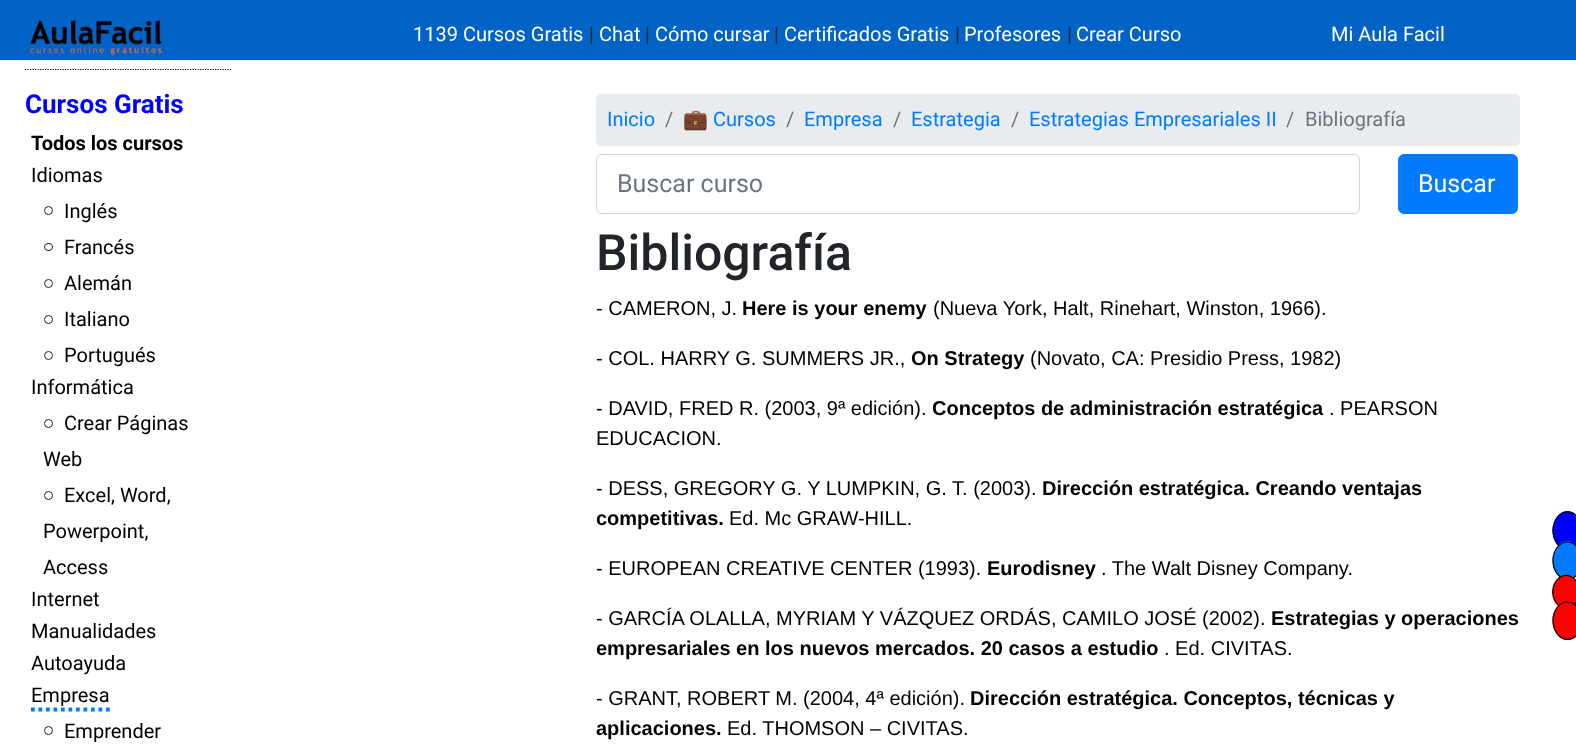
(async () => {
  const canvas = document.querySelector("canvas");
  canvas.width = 1576;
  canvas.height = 753;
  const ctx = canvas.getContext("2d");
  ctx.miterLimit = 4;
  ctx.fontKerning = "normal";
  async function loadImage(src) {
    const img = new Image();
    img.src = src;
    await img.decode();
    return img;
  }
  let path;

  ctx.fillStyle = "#ffffff";
  ctx.fillRect(0, 0, 1576, 753);
  ctx.fillStyle = "#0063c5";
  ctx.fillRect(0, 0, 1576, 60);
  ctx.drawImage(await loadImage("img/1.png"), 30, 20, 132, 36);
  path = new Path2D("M25 69.5H231");
  ctx.strokeStyle = "#000000";
  ctx.lineWidth = 1.2;
  ctx.setLineDash([1.25, 1.25]);
  ctx.stroke(path);
  ctx.beginPath();
  ctx.arc(48.5, 210.5, 4, 0, Math.PI * 2);
  ctx.strokeStyle = "#212529";
  ctx.lineWidth = 1;
  ctx.setLineDash([]);
  ctx.stroke();
  ctx.beginPath();
  ctx.roundRect(44.5, 243.5, 8, 7, 3.5);
  ctx.stroke();
  ctx.beginPath();
  ctx.arc(48.5, 283.5, 4, 0, Math.PI * 2);
  ctx.stroke();
  ctx.beginPath();
  ctx.arc(48.5, 319.5, 4, 0, Math.PI * 2);
  ctx.stroke();
  ctx.beginPath();
  ctx.arc(48.5, 355.5, 4, 0, Math.PI * 2);
  ctx.stroke();
  ctx.beginPath();
  ctx.arc(48.5, 423.5, 4, 0, Math.PI * 2);
  ctx.stroke();
  ctx.beginPath();
  ctx.arc(48.5, 495.5, 4, 0, Math.PI * 2);
  ctx.stroke();
  path = new Path2D("M31 709.5H110");
  ctx.strokeStyle = "#007bff";
  ctx.lineWidth = 3.8;
  ctx.setLineDash([3.75, 3.75]);
  ctx.stroke(path);
  ctx.beginPath();
  ctx.arc(48.5, 730.5, 4, 0, Math.PI * 2);
  ctx.strokeStyle = "#212529";
  ctx.lineWidth = 1;
  ctx.setLineDash([]);
  ctx.stroke();
  ctx.fillStyle = "#e9ecef";
  ctx.beginPath();
  ctx.roundRect(596, 94, 924, 52, 5);
  ctx.fill();
  ctx.beginPath();
  ctx.roundRect(596.5, 154.5, 763, 59, 5.5);
  ctx.strokeStyle = "#ced4da";
  ctx.stroke();
  ctx.fillStyle = "#007bff";
  ctx.beginPath();
  ctx.roundRect(1398.5, 154.5, 119, 59, 5.5);
  ctx.fill();
  ctx.strokeStyle = "#007bff";
  ctx.stroke();
  ctx.fillStyle = "#0000ff";
  ctx.beginPath();
  ctx.ellipse(1567.5, 530.5, 15, 19.5, 0, 0, Math.PI * 2);
  ctx.fill();
  path = new Path2D("M1567.5 512C1575.5 512 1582 520.5 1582 530.5C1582 541 1575.5 549.5 1567.5 549.5C1559.5 549.5 1553 541 1553 530.5C1553 520.5 1559.5 512 1567.5 512Z");
  ctx.strokeStyle = "#000000";
  ctx.lineWidth = 1.2;
  ctx.stroke(path);
  ctx.fillStyle = "#007bff";
  ctx.beginPath();
  ctx.ellipse(1567.5, 560.5, 15, 19.5, 0, 0, Math.PI * 2);
  ctx.fill();
  path = new Path2D("M1567.5 542C1575.5 542 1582 550.5 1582 560.5C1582 571 1575.5 579.5 1567.5 579.5C1559.5 579.5 1553 571 1553 560.5C1553 550.5 1559.5 542 1567.5 542Z");
  ctx.stroke(path);
  ctx.fillStyle = "#ff0000";
  ctx.beginPath();
  ctx.ellipse(1566, 592, 14, 17, 0, 0, Math.PI * 2);
  ctx.fill();
  path = new Path2D("M1566 575.5C1573.5 575.5 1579.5 583 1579.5 592C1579.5 601 1573.5 608 1566 608C1559 608 1553 601 1553 592C1553 583 1559 575.5 1566 575.5Z");
  ctx.stroke(path);
  ctx.beginPath();
  ctx.ellipse(1567.5, 620.5, 15, 19.5, 0, 0, Math.PI * 2);
  ctx.fill();
  path = new Path2D("M1567.5 602C1575.5 602 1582 610.5 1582 620.5C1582 631 1575.5 639.5 1567.5 639.5C1559.5 639.5 1553 631 1553 620.5C1553 610.5 1559.5 602 1567.5 602Z");
  ctx.stroke(path);
  ctx.font = "20px Roboto";
  ctx.fillStyle = "#ffffff";
  ctx.fillText("1139 Cursos Gratis", 413, 41);
  ctx.fillStyle = "#212529";
  ctx.fillText("|", 589, 41);
  ctx.fillStyle = "#ffffff";
  ctx.fillText("Chat", 599, 41);
  ctx.fillStyle = "#212529";
  ctx.fillText("|", 645, 41);
  ctx.fillStyle = "#ffffff";
  ctx.fillText("Cómo cursar", 655, 41);
  ctx.fillStyle = "#212529";
  ctx.fillText("|", 774, 41);
  ctx.fillStyle = "#ffffff";
  ctx.fillText("Certificados Gratis", 784, 41);
  ctx.fillStyle = "#212529";
  ctx.fillText("|", 955, 41);
  ctx.fillStyle = "#ffffff";
  ctx.fillText("Profesores", 964, 41);
  ctx.fillStyle = "#212529";
  ctx.fillText("|", 1067, 41);
  ctx.fillStyle = "#ffffff";
  ctx.fillText("Crear Curso", 1076, 41);
  ctx.fillText("Mi Aula Facil", 1331, 41);
  ctx.font = "bold 26px Roboto";
  ctx.fillStyle = "#0000ff";
  ctx.fillText("Cursos Gratis", 25, 113);
  ctx.font = "bold 20px Roboto";
  ctx.fillStyle = "#000000";
  ctx.fillText("Todos los cursos", 31, 150);
  ctx.font = "20px Roboto";
  for (const [text, x, y] of [
    ["Idiomas", 31, 182],
    ["Inglés", 64, 218],
    ["Francés", 64, 254],
    ["Alemán", 64, 290],
    ["Italiano", 64, 326],
    ["Portugués", 64, 362],
    ["Informática", 31, 394],
    ["Crear Páginas", 64, 430],
    ["Web", 43, 466],
    ["Excel, Word,", 64, 502],
    ["Powerpoint,", 43, 538],
    ["Access", 43, 574],
    ["Internet", 31, 606],
    ["Manualidades", 31, 638],
    ["Autoayuda", 31, 670],
    ["Empresa", 31, 702],
    ["Emprender", 64, 738],
  ]) {
    ctx.fillText(text, x, y);
  }
  ctx.fillStyle = "#007bff";
  ctx.fillText("Inicio", 607, 126);
  ctx.fillStyle = "#6c757d";
  ctx.fillText("/", 665, 126);
  ctx.font = "20px Noto Color Emoji";
  ctx.fillStyle = "#007bff";
  ctx.fillText("💼", 683, 126);
  ctx.font = "20px Roboto";
  ctx.fillText("Cursos", 713, 126);
  ctx.fillStyle = "#6c757d";
  ctx.fillText("/", 786, 126);
  ctx.fillStyle = "#007bff";
  ctx.fillText("Empresa", 804, 126);
  ctx.fillStyle = "#6c757d";
  ctx.fillText("/", 893, 126);
  ctx.fillStyle = "#007bff";
  ctx.fillText("Estrategia", 911, 126);
  ctx.fillStyle = "#6c757d";
  ctx.fillText("/", 1011, 126);
  ctx.fillStyle = "#007bff";
  ctx.fillText("Estrategias Empresariales II", 1029, 126);
  ctx.fillStyle = "#6c757d";
  ctx.fillText("/", 1286, 126);
  ctx.fillText("Bibliografía", 1305, 126);
  ctx.font = "25px Roboto";
  ctx.fillText("Buscar curso", 617, 192);
  ctx.fillStyle = "#ffffff";
  ctx.fillText("Buscar", 1418, 192);
  ctx.font = "500 50px Roboto";
  ctx.fillStyle = "#212529";
  ctx.fillText("Bibliografía", 596, 270);
  ctx.font = "20px Liberation Sans";
  ctx.fillStyle = "#000000";
  ctx.fillText("- CAMERON, J.", 596, 315);
  ctx.font = "bold 20px Liberation Sans";
  ctx.fillText("Here is your enemy", 742, 315);
  ctx.font = "20px Liberation Sans";
  ctx.fillText("(Nueva York, Halt, Rinehart, Winston, 1966).", 933, 315);
  ctx.fillText("- COL. HARRY G. SUMMERS JR.,", 596, 365);
  ctx.font = "bold 20px Liberation Sans";
  ctx.fillText("On Strategy", 911, 365);
  ctx.font = "20px Liberation Sans";
  ctx.fillText("(Novato, CA: Presidio Press, 1982)", 1030, 365);
  ctx.fillText("- DAVID, FRED R. (2003, 9ª edición).", 596, 415);
  ctx.font = "bold 20px Liberation Sans";
  ctx.fillText("Conceptos de administración estratégica", 932, 415);
  ctx.font = "20px Liberation Sans";
  for (const [text, x, y] of [
    [". PEARSON", 1329, 415],
    ["EDUCACION.", 596, 445],
    ["- DESS, GREGORY G. Y LUMPKIN, G. T. (2003).", 596, 495],
  ]) {
    ctx.fillText(text, x, y);
  }
  ctx.font = "bold 20px Liberation Sans";
  ctx.fillText("Dirección estratégica. Creando ventajas", 1042, 495);
  ctx.fillText("competitivas.", 596, 525);
  ctx.font = "20px Liberation Sans";
  ctx.fillText("Ed. Mc GRAW-HILL.", 729, 525);
  ctx.fillText("- EUROPEAN CREATIVE CENTER (1993).", 596, 575);
  ctx.font = "bold 20px Liberation Sans";
  ctx.fillText("Eurodisney", 987, 575);
  ctx.font = "20px Liberation Sans";
  ctx.fillText(". The Walt Disney Company.", 1101, 575);
  ctx.fillText("- GARCÍA OLALLA, MYRIAM Y VÁZQUEZ ORDÁS, CAMILO JOSÉ (2002).", 596, 625);
  ctx.font = "bold 20px Liberation Sans";
  ctx.fillText("Estrategias y operaciones", 1271, 625);
  ctx.fillText("empresariales en los nuevos mercados. 20 casos a estudio", 596, 655);
  ctx.font = "20px Liberation Sans";
  ctx.fillText(". Ed. CIVITAS.", 1164, 655);
  ctx.fillText("- GRANT, ROBERT M. (2004, 4ª edición).", 596, 705);
  ctx.font = "bold 20px Liberation Sans";
  ctx.fillText("Dirección estratégica. Conceptos, técnicas y", 970, 705);
  ctx.fillText("aplicaciones.", 596, 735);
  ctx.font = "20px Liberation Sans";
  ctx.fillText("Ed. THOMSON – CIVITAS.", 727, 735);
})();
